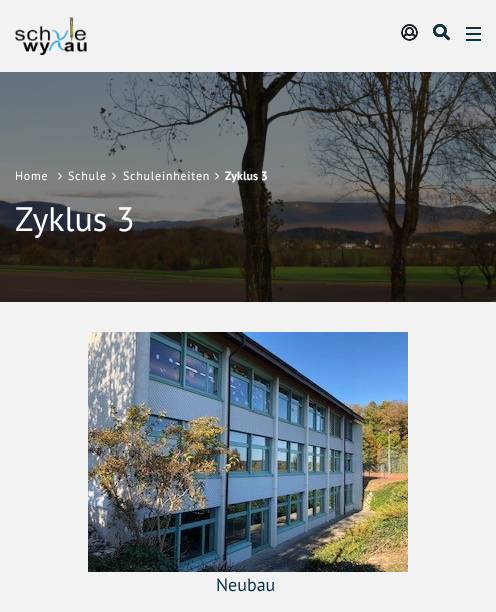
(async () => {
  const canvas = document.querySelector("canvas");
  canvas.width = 496;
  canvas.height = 612;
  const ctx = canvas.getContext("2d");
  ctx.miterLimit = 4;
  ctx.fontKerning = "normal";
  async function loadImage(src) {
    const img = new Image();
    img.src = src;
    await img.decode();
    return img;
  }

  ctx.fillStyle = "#f2f2f2";
  ctx.fillRect(0, 0, 496, 612);
  ctx.drawImage(await loadImage("img/1.png"), 15, 17, 72, 38);
  ctx.drawImage(await loadImage("img/2.png"), 401, 24, 17, 17);
  ctx.drawImage(await loadImage("img/3.png"), 433, 24, 17, 17);
  for (const [x, y, w, h, color] of [
    [466, 27, 15, 2, "#0b3143"],
    [466, 33, 15, 2, "#0b3143"],
    [466, 39, 15, 2, "#0b3143"],
  ]) {
    ctx.fillStyle = color;
    ctx.fillRect(x, y, w, h);
  }
  ctx.drawImage(await loadImage("img/4.png"), 0, 72, 496, 230);
  ctx.drawImage(await loadImage("img/5.png"), 58, 172, 4, 8);
  ctx.drawImage(await loadImage("img/6.png"), 112, 172, 4, 8);
  ctx.drawImage(await loadImage("img/7.png"), 215, 172, 4, 8);
  ctx.drawImage(await loadImage("img/8.png"), 88, 332, 320, 240);
  ctx.letterSpacing = "0.75px";
  ctx.font = "12px PT Sans";
  ctx.fillStyle = "#ffffff";
  for (const [text, x, y] of [
    ["Home", 15, 180],
    ["Schule", 68, 180],
    ["Schuleinheiten", 123, 180],
  ]) {
    ctx.fillText(text, x, y);
  }
  ctx.letterSpacing = "0px";
  ctx.font = "bold 12px PT Sans";
  ctx.fillText("Zyklus 3", 225, 180);
  ctx.font = "34px PT Sans";
  ctx.fillText("Zyklus 3", 15, 231);
  ctx.font = "18px PT Sans";
  ctx.fillStyle = "#0b3143";
  ctx.fillText("Neubau", 216, 591);
})();
